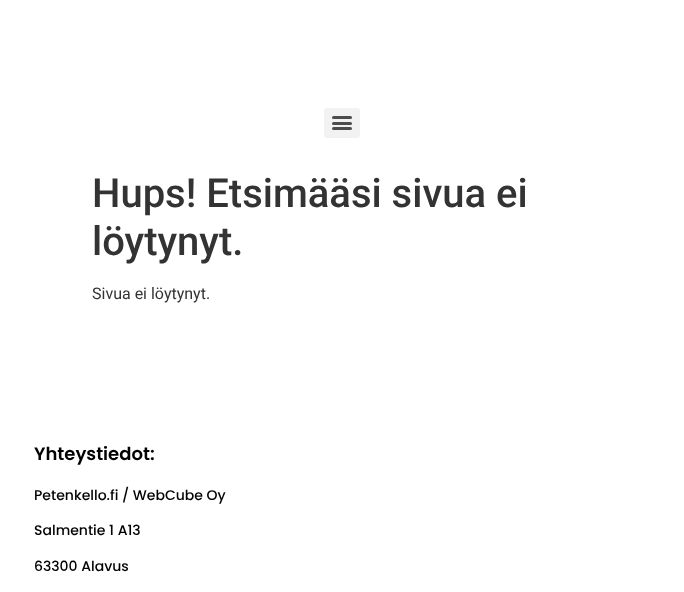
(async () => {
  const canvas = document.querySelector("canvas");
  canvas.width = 684;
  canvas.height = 592;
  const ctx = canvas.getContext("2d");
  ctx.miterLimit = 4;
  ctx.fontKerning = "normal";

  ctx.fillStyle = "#ffffff";
  ctx.fillRect(0, 0, 684, 592);
  ctx.fillStyle = "#f2f2f2";
  ctx.beginPath();
  ctx.roundRect(324, 108, 36, 30, 3);
  ctx.fill();
  ctx.fillStyle = "#4d4d4d";
  ctx.beginPath();
  ctx.roundRect(332, 122, 20, 3, 1.5);
  ctx.fill();
  ctx.beginPath();
  ctx.roundRect(332, 116, 20, 3, 1.5);
  ctx.fill();
  ctx.beginPath();
  ctx.roundRect(332, 127, 20, 3, 1.5);
  ctx.fill();
  ctx.font = "500 40px Roboto";
  ctx.fillStyle = "#333333";
  ctx.fillText("Hups! Etsimääsi sivua ei", 92, 207);
  ctx.fillText("löytynyt.", 92, 255);
  ctx.font = "16px Roboto";
  ctx.fillText("Sivua ei löytynyt.", 92, 299);
  ctx.font = "600 18px Poppins";
  ctx.fillStyle = "#020202";
  ctx.fillText("Yhteystiedot:", 34, 460);
  ctx.font = "500 14px Poppins";
  for (const [text, x, y] of [
    ["Petenkello.fi / WebCube Oy", 34, 500],
    ["Salmentie 1 A13", 34, 535],
    ["63300 Alavus", 34, 571],
  ]) {
    ctx.fillText(text, x, y);
  }
})();
